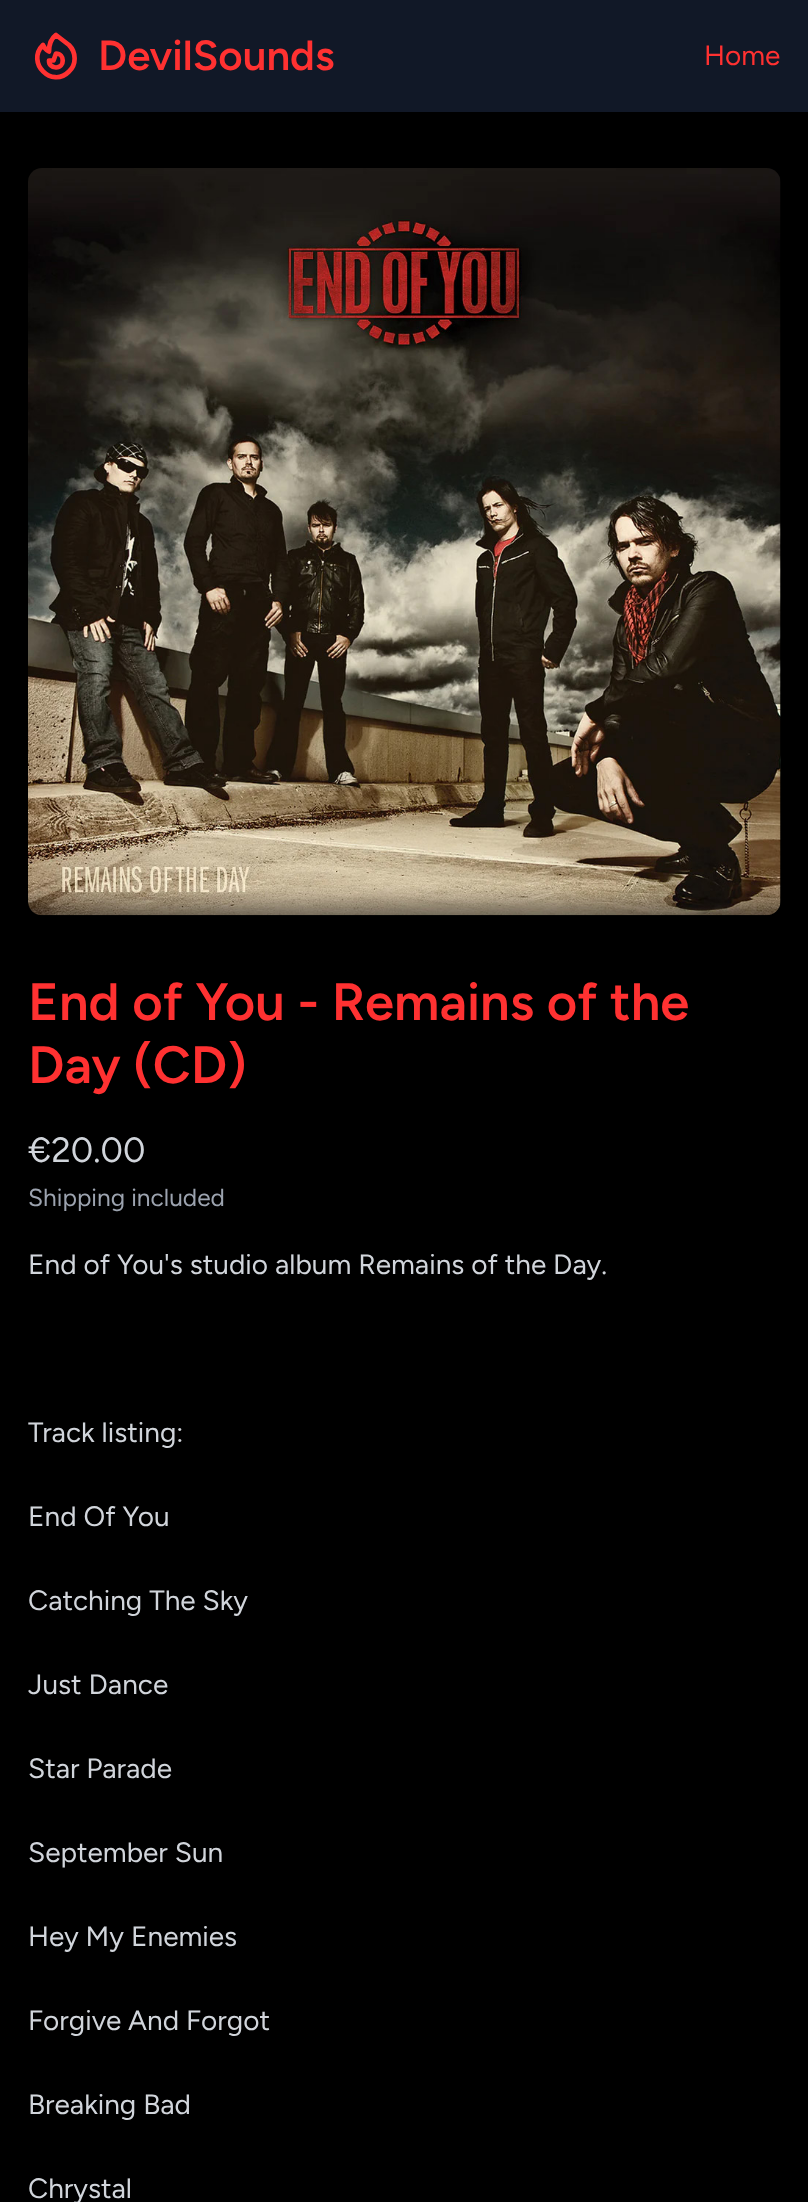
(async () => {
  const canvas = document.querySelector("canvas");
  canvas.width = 808;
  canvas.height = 2202;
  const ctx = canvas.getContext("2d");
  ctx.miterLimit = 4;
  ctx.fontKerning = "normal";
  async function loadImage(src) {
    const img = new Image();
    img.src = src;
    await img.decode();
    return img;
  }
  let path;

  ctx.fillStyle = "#000000";
  ctx.fillRect(0, 0, 808, 2202);
  ctx.fillStyle = "#111827";
  ctx.fillRect(0, 0, 808, 112);
  path = new Path2D("M69 71.5C52 89 25.5 62.5 43 45C43 45 44.5 49 49 51.5C49 46.5 50 39.5 56 35L69 45C76.5 52.5 76.5 64.5 69 71.5ZM51 65.5C52.5 67 54.5 67.5 56 67.5C65 67.5 65 53.5 56 53.5L53.5 60.5H49C49 62.5 49.5 64.5 51 65.5Z");
  ctx.strokeStyle = "#ff3131";
  ctx.lineWidth = 4.7;
  ctx.lineCap = "round";
  ctx.lineJoin = "round";
  ctx.stroke(path);
  ctx.drawImage(await loadImage("img/1.png"), 28, 168, 753, 748);
  ctx.font = "600 42px Figtree";
  ctx.fillStyle = "#ff3131";
  ctx.fillText("DevilSounds", 98, 70);
  ctx.font = "300 28px Figtree";
  ctx.fillText("Home", 704, 65);
  ctx.font = "600 52.5px Figtree";
  ctx.fillText("End of You - Remains of the", 28, 1020);
  ctx.fillText("Day (CD)", 28, 1083);
  ctx.font = "300 35px Figtree";
  ctx.fillStyle = "#d1d5db";
  ctx.fillText("€20.00", 28, 1162);
  ctx.font = "300 24.5px Figtree";
  ctx.fillStyle = "#9ca3af";
  ctx.fillText("Shipping included", 28, 1206);
  ctx.font = "300 28px Figtree";
  ctx.fillStyle = "#d1d5db";
  for (const [text, x, y] of [
    ["End of You's studio album Remains of the Day.", 28, 1274],
    ["Track listing:", 28, 1442],
    ["End Of You", 28, 1526],
    ["Catching The Sky", 28, 1610],
    ["Just Dance", 28, 1694],
    ["Star Parade", 28, 1778],
    ["September Sun", 28, 1862],
    ["Hey My Enemies", 28, 1946],
    ["Forgive And Forgot", 28, 2030],
    ["Breaking Bad", 28, 2114],
    ["Chrystal", 28, 2198],
  ]) {
    ctx.fillText(text, x, y);
  }
})();
